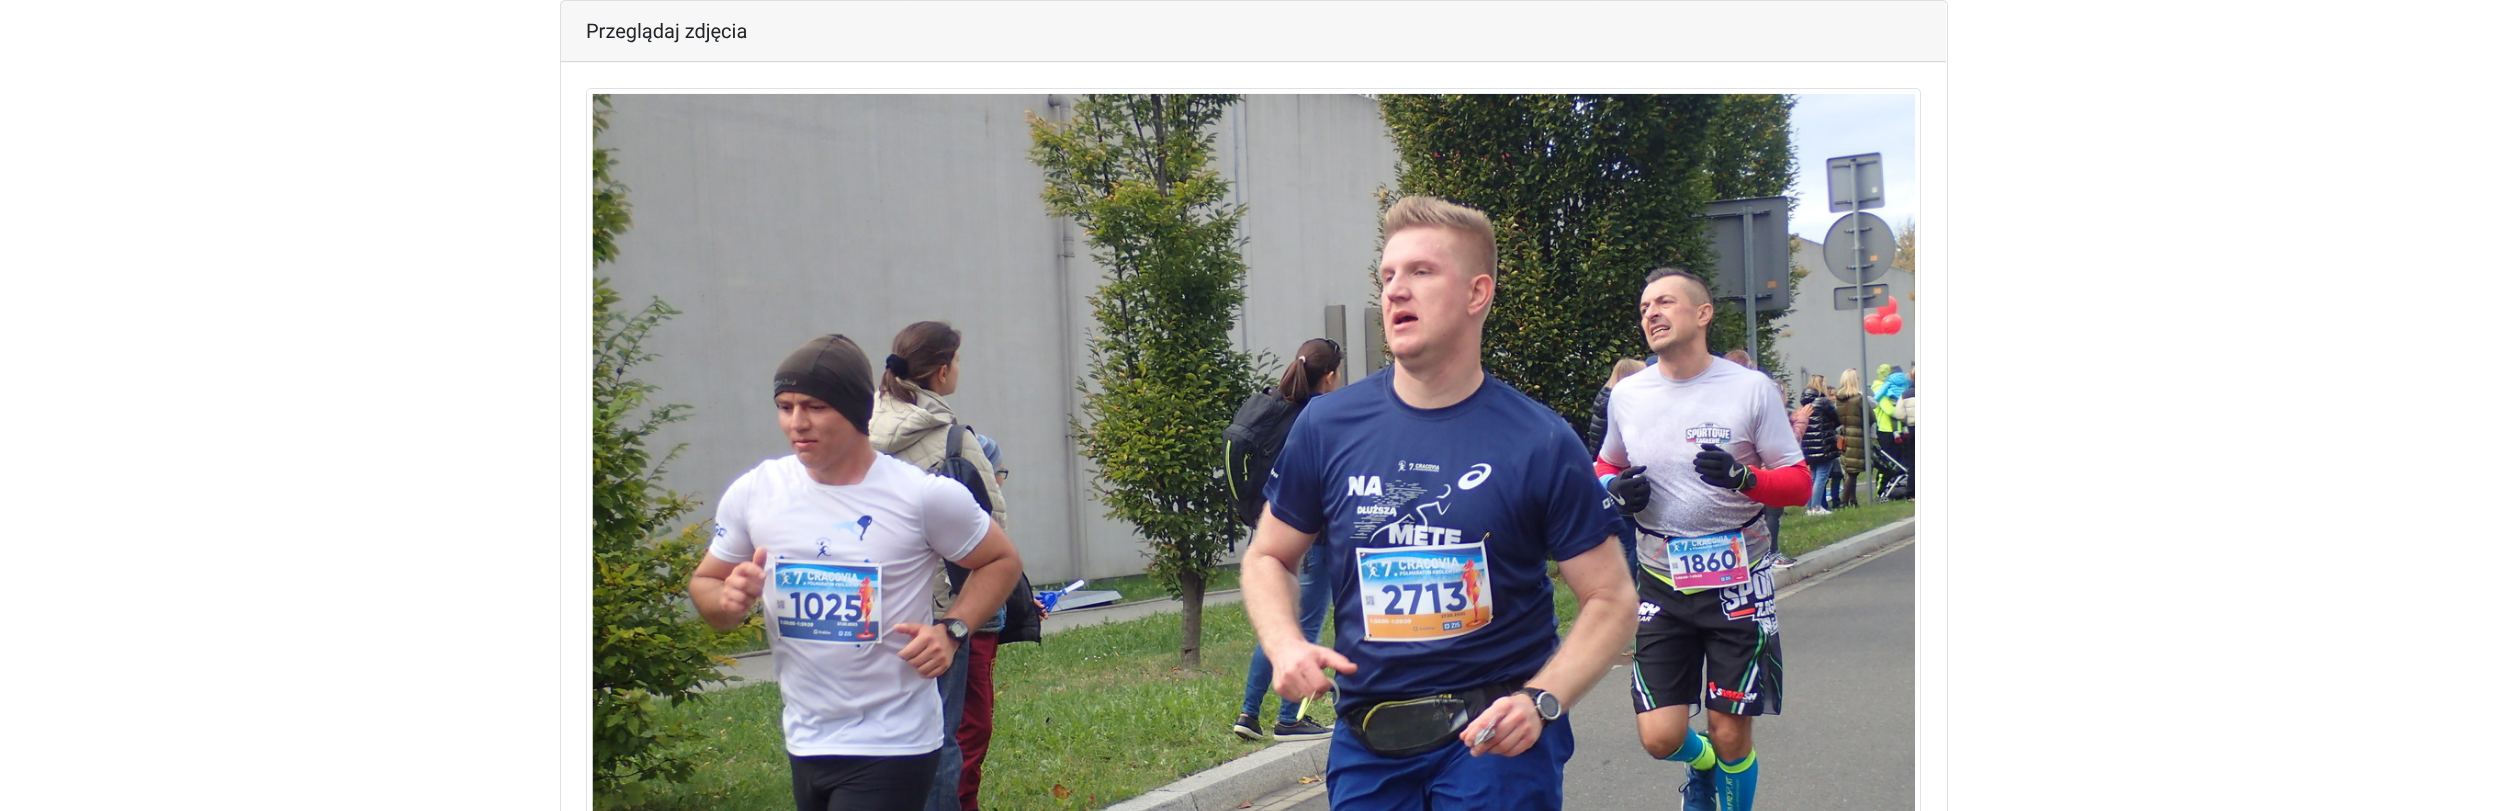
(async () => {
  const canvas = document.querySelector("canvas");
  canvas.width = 2506;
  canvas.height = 811;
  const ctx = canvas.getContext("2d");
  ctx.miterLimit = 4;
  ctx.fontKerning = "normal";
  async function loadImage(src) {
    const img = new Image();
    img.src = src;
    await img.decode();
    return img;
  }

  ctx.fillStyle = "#ffffff";
  ctx.fillRect(0, 0, 2506, 811);
  ctx.beginPath();
  ctx.roundRect(560.5, 0.5, 1387, 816, 4.5);
  ctx.strokeStyle = "#dfdfdf";
  ctx.stroke();
  ctx.fillStyle = "rgba(0, 0, 0, 0.03)";
  ctx.fillRect(561, 1, 1385, 62);
  ctx.fillStyle = "#d8d8d8";
  ctx.fillRect(561, 61, 1385, 1);
  ctx.beginPath();
  ctx.roundRect(586.5, 88.5, 1334, 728, 4.5);
  ctx.strokeStyle = "#dee2e6";
  ctx.stroke();
  ctx.drawImage(await loadImage("img/1.png"), 592, 93, 1323, 718);
  ctx.font = "20px Roboto";
  ctx.fillStyle = "#212529";
  ctx.fillText("Przeglądaj zdjęcia", 586, 38);
})();
